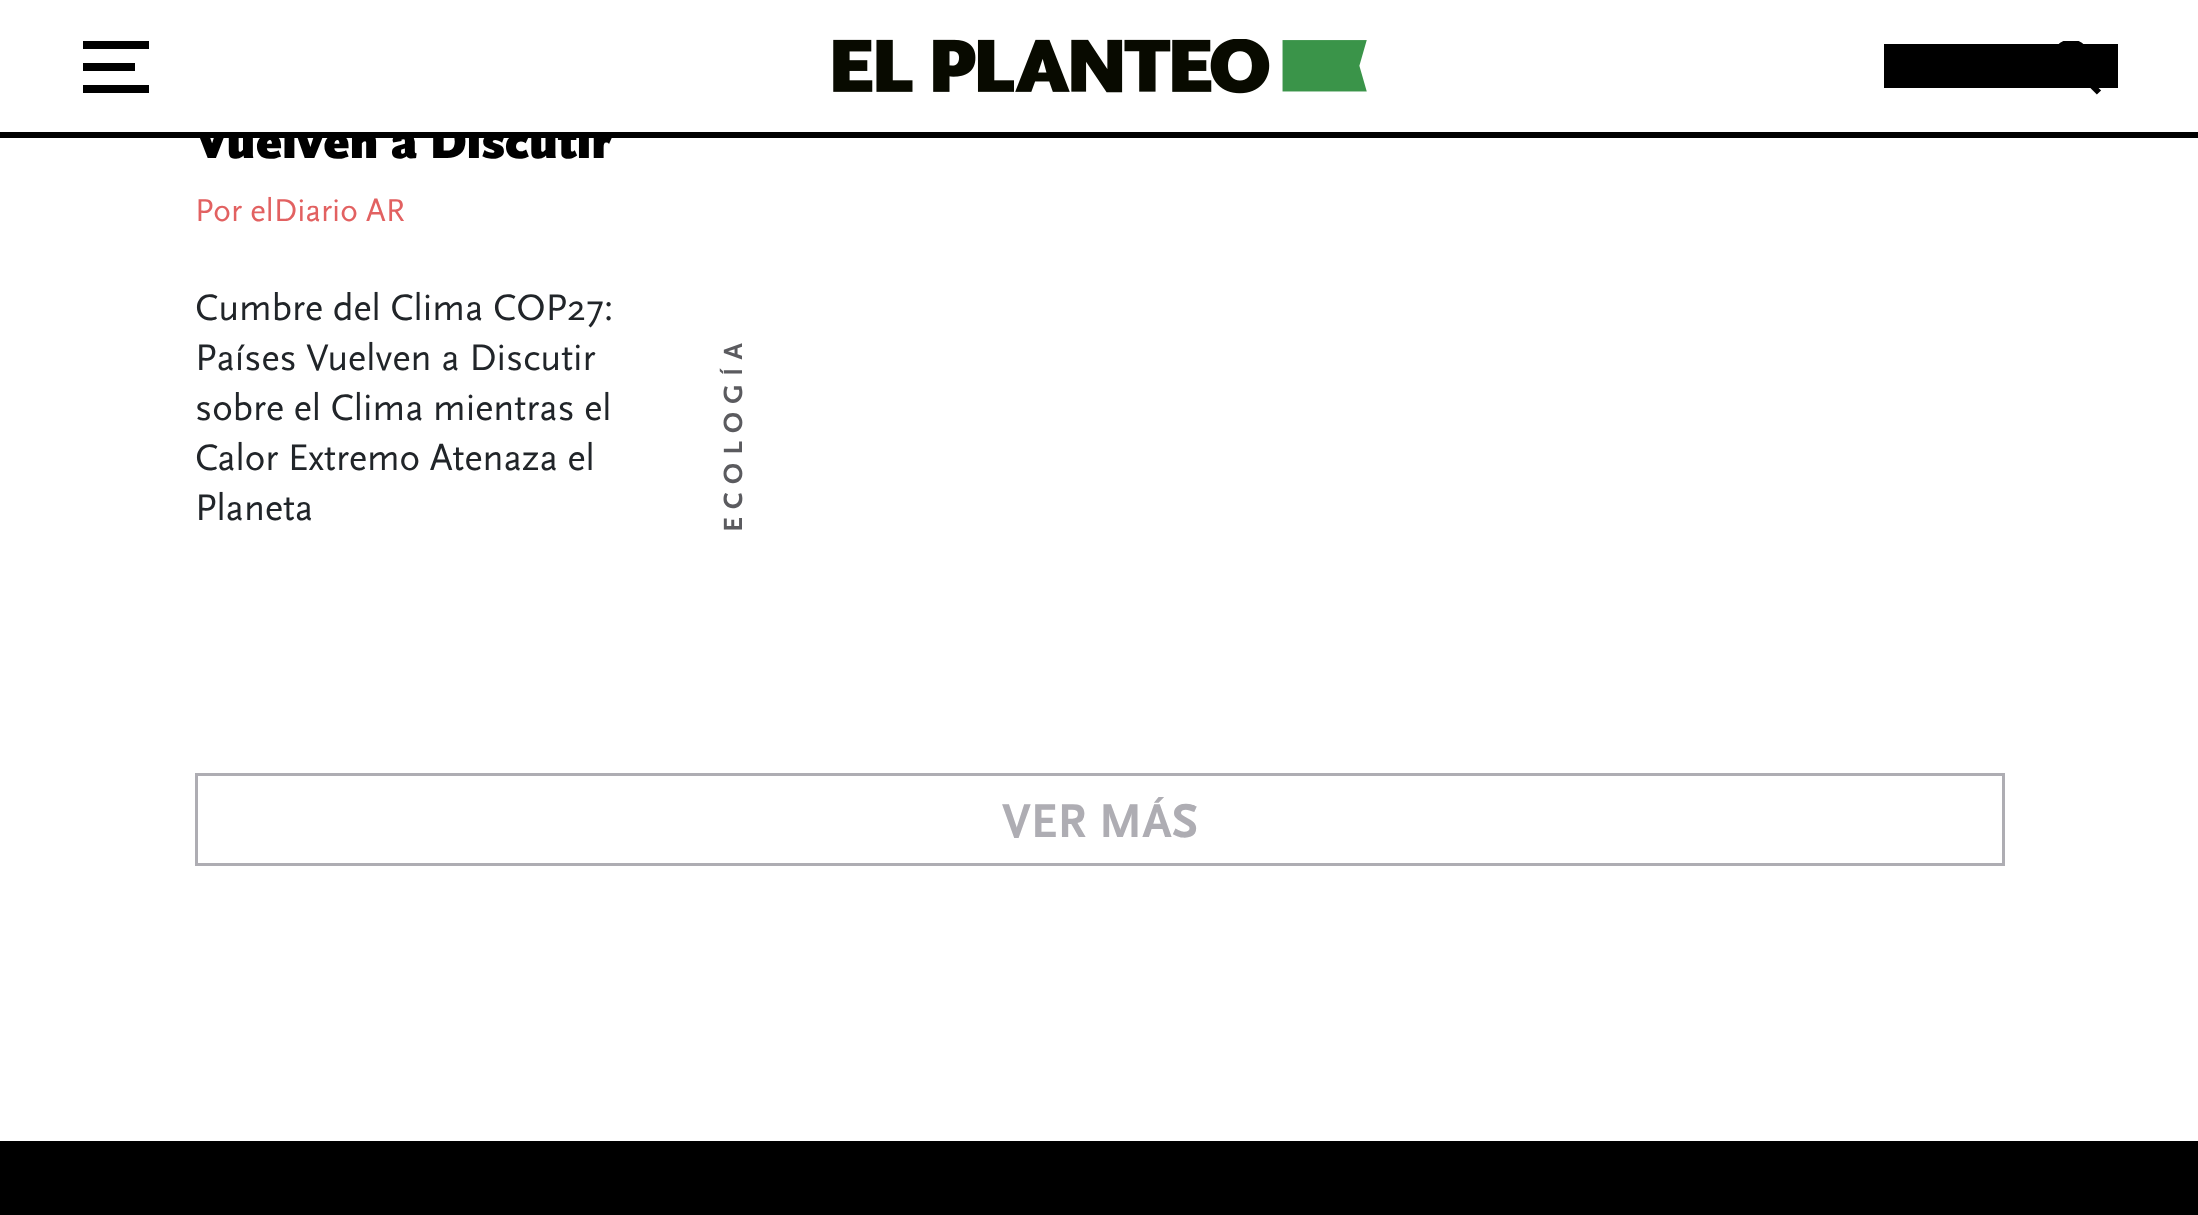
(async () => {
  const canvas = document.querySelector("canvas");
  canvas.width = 2198;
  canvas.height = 1215;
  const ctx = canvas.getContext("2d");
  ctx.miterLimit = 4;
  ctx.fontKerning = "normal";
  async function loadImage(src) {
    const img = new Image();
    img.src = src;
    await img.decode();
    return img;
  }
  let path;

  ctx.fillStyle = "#ffffff";
  ctx.fillRect(0, 0, 2198, 1215);
  for (const [x, y, w, h, color] of [
    [83, 41, 66, 8, "#000000"],
    [83, 63, 52, 8, "#000000"],
    [83, 85, 66, 8, "#000000"],
  ]) {
    ctx.fillStyle = color;
    ctx.fillRect(x, y, w, h);
  }
  ctx.drawImage(await loadImage("img/1.png"), 833, 39, 534, 55);
  ctx.fillRect(1884, 44, 234, 44);
  ctx.save();
  ctx.beginPath();
  ctx.rect(2052, 41, 49, 55);
  ctx.clip();
  ctx.beginPath();
  ctx.arc(2071, 59, 16.5, 0, Math.PI * 2);
  ctx.strokeStyle = "#000000";
  ctx.lineWidth = 6;
  ctx.stroke();
  ctx.restore();
  path = new Path2D("M2079.5 73L2099 92.5");
  ctx.strokeStyle = "#000000";
  ctx.lineWidth = 6;
  ctx.stroke(path);
  ctx.fillRect(0, 132, 2198, 6);
  ctx.strokeStyle = "#aeadb3";
  ctx.lineWidth = 3;
  ctx.strokeRect(196.5, 774.5, 1807, 90);
  ctx.fillRect(0, 1141, 2198, 74);
  ctx.font = "900 49.5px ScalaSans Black";
  ctx.fillText("Vuelven a Discutir", 195, 158);
  ctx.fillStyle = "#ffffff";
  ctx.fillRect(195, 121, 395, 11);
  ctx.font = "500 33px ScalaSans";
  ctx.fillStyle = "#e26161";
  ctx.fillText("Por elDiario AR", 195, 221);
  ctx.font = "500 38.5px ScalaSans";
  ctx.fillStyle = "#212529";
  for (const [text, x, y] of [
    ["Cumbre del Clima COP27:", 195, 320],
    ["Países Vuelven a Discutir", 195, 370],
    ["sobre el Clima mientras el", 195, 420],
    ["Calor Extremo Atenaza el", 195, 470],
    ["Planeta", 195, 520],
  ]) {
    ctx.fillText(text, x, y);
  }
  ctx.letterSpacing = "8.25px";
  ctx.font = "bold 27.5px Scala Sans";
  ctx.fillStyle = "#5b5b5f";
  ctx.save();
  ctx.translate(742, 532);
  ctx.rotate(-90 * Math.PI / 180);
  ctx.fillText("ECOLOGÍA", 0, 0);
  ctx.restore();
  ctx.letterSpacing = "0px";
  ctx.font = "bold 49.5px Scala Sans";
  ctx.fillStyle = "#aeadb3";
  ctx.fillText("VER MÁS", 1002, 837);
})();
